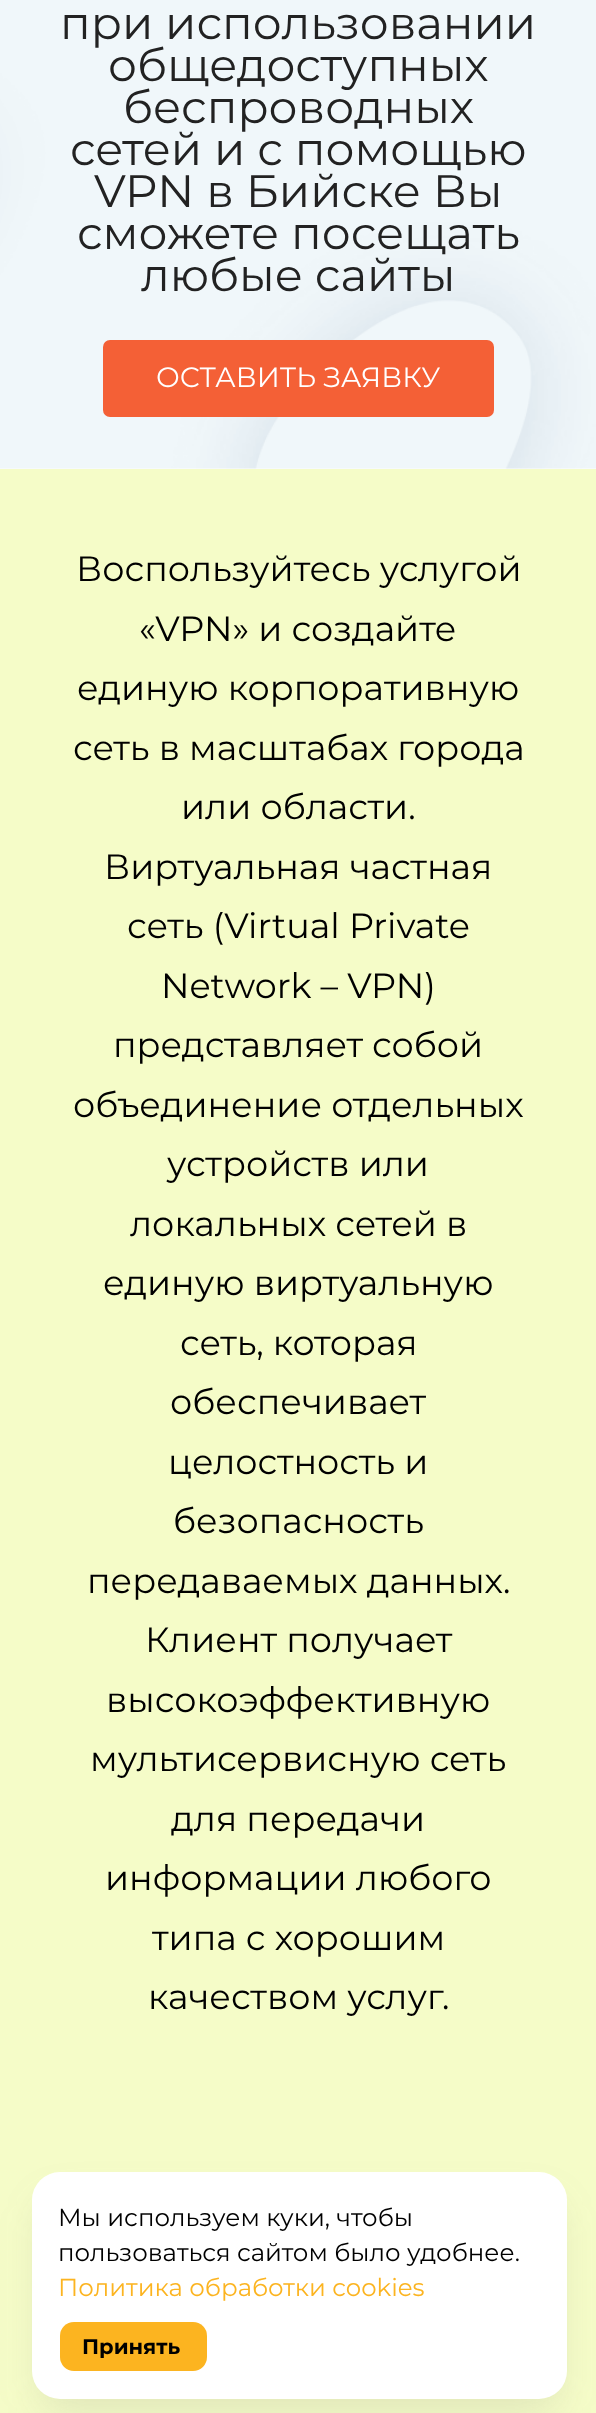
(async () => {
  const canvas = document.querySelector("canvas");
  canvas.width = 596;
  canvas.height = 2413;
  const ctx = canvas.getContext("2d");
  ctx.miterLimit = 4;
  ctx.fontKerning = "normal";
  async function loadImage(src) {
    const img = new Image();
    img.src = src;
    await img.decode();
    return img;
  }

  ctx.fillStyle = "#f5fcc8";
  ctx.fillRect(0, 0, 596, 2413);
  ctx.fillStyle = "#ffffff";
  ctx.fillRect(0, 468, 596, 1);
  ctx.drawImage(await loadImage("img/1.png"), 0, 0, 596, 469);
  ctx.fillStyle = "#f46036";
  ctx.beginPath();
  ctx.roundRect(103, 340, 391, 77, 7);
  ctx.fill();
  ctx.fillStyle = "rgba(96, 96, 96, 0.15)";
  ctx.filter = "blur(21px)";
  ctx.beginPath();
  ctx.roundRect(42, 2203, 515, 207, 18);
  ctx.fill();
  ctx.filter = "none";
  ctx.fillStyle = "#ffffff";
  ctx.beginPath();
  ctx.roundRect(32, 2172, 535, 227, 28);
  ctx.fill();
  ctx.fillStyle = "#fcb420";
  ctx.beginPath();
  ctx.roundRect(60, 2322, 147, 49, 14);
  ctx.fill();
  ctx.font = "45.5px Montserrat";
  ctx.fillStyle = "#222222";
  for (const [text, x, y] of [
    ["при использовании", 60, 39],
    ["общедоступных", 108, 81],
    ["беспроводных", 123, 123],
    ["сетей и с помощью", 70, 165],
    ["VPN в Бийске Вы", 94, 207],
    ["сможете посещать", 77, 249],
    ["любые сайты", 141, 291],
  ]) {
    ctx.fillText(text, x, y);
  }
  ctx.font = "28px Montserrat";
  ctx.fillStyle = "#ffffff";
  ctx.fillText("ОСТАВИТЬ ЗАЯВКУ", 156, 387);
  ctx.font = "35px Montserrat";
  ctx.fillStyle = "#000000";
  for (const [text, x, y] of [
    ["Воспользуйтесь услугой", 76, 581],
    ["«VPN» и создайте", 139, 641],
    ["единую корпоративную", 77, 700],
    ["сеть в масштабах города", 73, 760],
    ["или области.", 181, 819],
    ["Виртуальная частная", 104, 879],
    ["сеть (Virtual Private", 127, 938],
    ["Network – VPN)", 161, 998],
    ["представляет собой", 113, 1057],
    ["объединение отдельных", 73, 1117],
    ["устройств или", 167, 1176],
    ["локальных сетей в", 130, 1236],
    ["единую виртуальную", 103, 1295],
    ["сеть, которая", 180, 1355],
    ["обеспечивает", 170, 1414],
    ["целостность и", 168, 1474],
    ["безопасность", 173, 1533],
    ["передаваемых данных.", 87, 1593],
    ["Клиент получает", 145, 1652],
    ["высокоэффективную", 106, 1712],
    ["мультисервисную сеть", 90, 1771],
    ["для передачи", 171, 1831],
    ["информации любого", 105, 1890],
    ["типа с хорошим", 152, 1950],
    ["качеством услуг.", 148, 2009],
  ]) {
    ctx.fillText(text, x, y);
  }
  ctx.font = "24.5px Montserrat";
  ctx.fillText("Мы используем куки, чтобы", 58, 2226);
  ctx.fillText("пользоваться сайтом было удобнее.", 58, 2261);
  ctx.fillStyle = "#fcb420";
  ctx.fillText("Политика обработки cookies", 58, 2296);
  ctx.font = "bold 21px Montserrat";
  ctx.fillStyle = "#000000";
  ctx.fillText("Принять", 82, 2354);
})();
